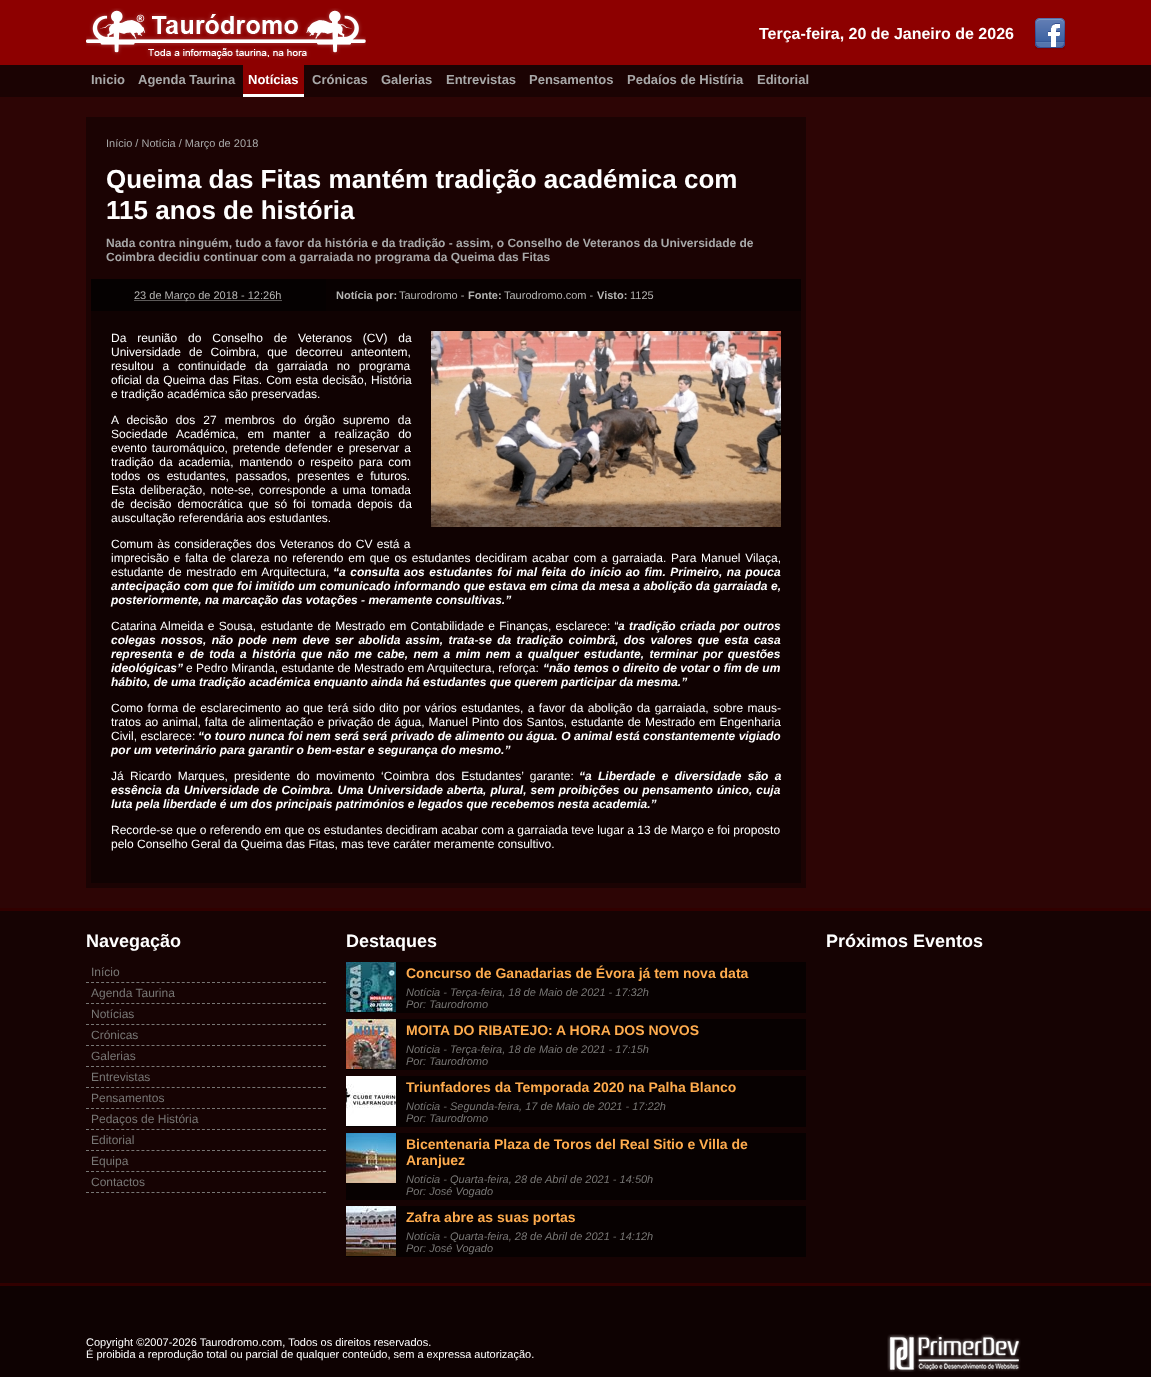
(async () => {
  const canvas = document.querySelector("canvas");
  canvas.width = 1151;
  canvas.height = 1377;
  const ctx = canvas.getContext("2d");
  ctx.miterLimit = 4;
  ctx.fontKerning = "normal";
  async function loadImage(src) {
    const img = new Image();
    img.src = src;
    await img.decode();
    return img;
  }
  let path;

  ctx.fillStyle = "#2d0505";
  ctx.fillRect(0, 0, 1151, 1377);
  ctx.fillStyle = "#8d0000";
  ctx.fillRect(0, 0, 1151, 65);
  ctx.drawImage(await loadImage("img/1.png"), 86, 8, 280, 52);
  ctx.drawImage(await loadImage("img/2.png"), 1035, 18, 30, 32);
  for (const [x, y, w, h, color] of [
    [0, 65, 1151, 32, "#1b0303"],
    [243, 65, 61, 29, "#8d0000"],
    [243, 94, 61, 3, "#ffffff"],
    [86, 117, 720, 771, "#1b0303"],
    [91, 279, 235, 32, "#050101"],
  ]) {
    ctx.fillStyle = color;
    ctx.fillRect(x, y, w, h);
  }
  path = new Path2D("M134.5 300.5H281.5");
  ctx.strokeStyle = "#b5b4b2";
  ctx.setLineDash([1, 1]);
  ctx.stroke(path);
  ctx.fillStyle = "#080101";
  ctx.fillRect(326, 279, 475, 32);
  ctx.fillStyle = "#100202";
  ctx.fillRect(91, 311, 710, 572);
  ctx.drawImage(await loadImage("img/3.png"), 431, 331, 350, 196);
  ctx.fillStyle = "#160303";
  ctx.fillRect(0, 911, 1151, 372);
  ctx.fillStyle = "#310000";
  ctx.fillRect(0, 908, 1151, 3);
  path = new Path2D("M86 982.5H326");
  ctx.strokeStyle = "#787775";
  ctx.setLineDash([3, 2.04]);
  ctx.stroke(path);
  path = new Path2D("M86 1003.5H326");
  ctx.stroke(path);
  path = new Path2D("M86 1024.5H326");
  ctx.stroke(path);
  path = new Path2D("M86 1045.5H326");
  ctx.stroke(path);
  path = new Path2D("M86 1066.5H326");
  ctx.stroke(path);
  path = new Path2D("M86 1087.5H326");
  ctx.stroke(path);
  path = new Path2D("M86 1108.5H326");
  ctx.stroke(path);
  path = new Path2D("M86 1129.5H326");
  ctx.stroke(path);
  path = new Path2D("M86 1150.5H326");
  ctx.stroke(path);
  path = new Path2D("M86 1171.5H326");
  ctx.stroke(path);
  path = new Path2D("M86 1192.5H326");
  ctx.stroke(path);
  ctx.fillStyle = "#070101";
  ctx.fillRect(346, 962, 460, 51);
  ctx.drawImage(await loadImage("img/4.png"), 346, 962, 50, 50);
  ctx.fillRect(346, 1019, 460, 51);
  ctx.drawImage(await loadImage("img/5.png"), 346, 1019, 50, 50);
  ctx.fillRect(346, 1076, 460, 51);
  ctx.drawImage(await loadImage("img/6.png"), 346, 1076, 50, 50);
  ctx.fillRect(346, 1133, 460, 67);
  ctx.drawImage(await loadImage("img/7.png"), 346, 1133, 50, 50);
  ctx.fillRect(346, 1206, 460, 51);
  ctx.drawImage(await loadImage("img/8.png"), 346, 1206, 50, 50);
  ctx.fillStyle = "#0e0202";
  ctx.fillRect(0, 1286, 1151, 91);
  ctx.fillStyle = "#310000";
  ctx.fillRect(0, 1283, 1151, 3);
  ctx.drawImage(await loadImage("img/9.png"), 887, 1334, 134, 38);
  ctx.font = "bold 16px Liberation Sans";
  ctx.fillStyle = "#ffffff";
  ctx.fillText("Terça-feira, 20 de Janeiro de 2026", 759, 39);
  ctx.font = "bold 13px Liberation Sans";
  ctx.fillStyle = "#a8a8a8";
  ctx.fillText("Inicio", 91, 84);
  ctx.fillText("Agenda Taurina", 138, 84);
  ctx.fillStyle = "#ffffff";
  ctx.fillText("Notícias", 248, 84);
  ctx.fillStyle = "#a8a8a8";
  for (const [text, x, y] of [
    ["Crónicas", 312, 84],
    ["Galerias", 381, 84],
    ["Entrevistas", 446, 84],
    ["Pensamentos", 529, 84],
    ["Pedaíos de Histíria", 627, 84],
    ["Editorial", 757, 84],
  ]) {
    ctx.fillText(text, x, y);
  }
  ctx.font = "11px Liberation Sans";
  ctx.fillText("Início / Notícia / Março de 2018", 106, 147);
  ctx.font = "bold 26px Liberation Sans";
  ctx.fillStyle = "#ffffff";
  ctx.fillText("Queima das Fitas mantém tradição académica com", 106, 188);
  ctx.fillText("115 anos de história", 106, 219);
  ctx.font = "bold 12px Liberation Sans";
  ctx.fillStyle = "#a8a8a8";
  ctx.fillText("Nada contra ninguém, tudo a favor da história e da tradição - assim, o Conselho de Veteranos da Universidade de", 106, 247);
  ctx.fillText("Coimbra decidiu continuar com a garraiada no programa da Queima das Fitas", 106, 261);
  ctx.font = "11px Liberation Sans";
  ctx.fillStyle = "#b5b4b2";
  ctx.fillText("23 de Março de 2018 - 12:26h", 134, 299);
  ctx.font = "bold 11px Liberation Sans";
  ctx.fillText("Notícia por:", 336, 299);
  ctx.font = "11px Liberation Sans";
  ctx.fillText("Taurodromo -", 399, 299);
  ctx.font = "bold 11px Liberation Sans";
  ctx.fillText("Fonte:", 468, 299);
  ctx.font = "11px Liberation Sans";
  ctx.fillText("Taurodromo.com -", 504, 299);
  ctx.font = "bold 11px Liberation Sans";
  ctx.fillText("Visto:", 597, 299);
  ctx.font = "11px Liberation Sans";
  ctx.fillText("1125", 630, 299);
  ctx.wordSpacing = "7.5px";
  ctx.font = "12px Liberation Sans";
  ctx.fillStyle = "#ffffff";
  ctx.fillText("Da reunião do Conselho de Veteranos (CV) da", 111, 342);
  ctx.wordSpacing = "4.75px";
  ctx.fillText("Universidade de Coimbra, que decorreu anteontem,", 111, 356);
  ctx.wordSpacing = "5.5px";
  ctx.fillText("resultou a continuidade da garraiada no programa", 111, 370);
  ctx.wordSpacing = "0.75px";
  ctx.fillText("oficial da Queima das Fitas. Com esta decisão, História", 111, 384);
  ctx.wordSpacing = "0px";
  ctx.fillText("e tradição académica são preservadas.", 111, 398);
  ctx.wordSpacing = "4.75px";
  ctx.fillText("A decisão dos 27 membros do órgão supremo da", 111, 424);
  ctx.wordSpacing = "5.5px";
  ctx.fillText("Sociedade Académica, em manter a realização do", 111, 438);
  ctx.wordSpacing = "1.5px";
  ctx.fillText("evento tauromáquico, pretende defender e preservar a", 111, 452);
  ctx.wordSpacing = "2.25px";
  ctx.fillText("tradição da academia, mantendo o respeito para com", 111, 466);
  ctx.wordSpacing = "3.5px";
  ctx.fillText("todos os estudantes, passados, presentes e futuros.", 111, 480);
  ctx.wordSpacing = "1.75px";
  ctx.fillText("Esta deliberação, note-se, corresponde a uma tomada", 111, 494);
  ctx.wordSpacing = "2.5px";
  ctx.fillText("de decisão democrática que só foi tomada depois da", 111, 508);
  ctx.wordSpacing = "0px";
  ctx.fillText("auscultação referendária aos estudantes.", 111, 522);
  ctx.wordSpacing = "1px";
  ctx.fillText("Comum às considerações dos Veteranos do CV está a", 111, 548);
  ctx.wordSpacing = "1.4px";
  ctx.fillText("imprecisão e falta de clareza no referendo em que os estudantes decidiram acabar com a garraiada. Para Manuel Vilaça,", 111, 562);
  ctx.wordSpacing = "1.2px";
  ctx.fillText("estudante de mestrado em Arquitectura,", 111, 576);
  ctx.font = "italic bold 12px Liberation Sans";
  ctx.fillText("“a consulta aos estudantes foi mal feita do início ao fim. Primeiro, na pouca", 333, 576);
  ctx.wordSpacing = "0.25px";
  ctx.fillText("antecipação com que foi imitido um comunicado informando que estava em cima da mesa a abolição da garraiada e,", 111, 590);
  ctx.wordSpacing = "0px";
  ctx.fillText("posteriormente, na marcação das votações - meramente consultivas.”", 111, 604);
  ctx.wordSpacing = "1px";
  ctx.font = "12px Liberation Sans";
  ctx.fillText("Catarina Almeida e Sousa, estudante de Mestrado em Contabilidade e Finanças, esclarece: “", 111, 630);
  ctx.font = "italic bold 12px Liberation Sans";
  ctx.fillText("a tradição criada por outros", 618, 630);
  ctx.wordSpacing = "2px";
  ctx.fillText("colegas nossos, não pode nem deve ser abolida assim, trata-se da tradição coimbrã, dos valores que esta casa", 111, 644);
  ctx.wordSpacing = "2.1px";
  ctx.fillText("representa e de toda a história que não me cabe, nem a mim nem a qualquer estudante, terminar por questões", 111, 658);
  ctx.wordSpacing = "0px";
  ctx.fillText("ideológicas”", 111, 672);
  ctx.font = "12px Liberation Sans";
  ctx.fillText("e Pedro Miranda, estudante de Mestrado em Arquitectura, reforça:", 186, 672);
  ctx.font = "italic bold 12px Liberation Sans";
  ctx.fillText("“não temos o direito de votar o fim de um", 543, 672);
  ctx.fillText("hábito, de uma tradição académica enquanto ainda há estudantes que querem participar da mesma.”", 111, 686);
  ctx.wordSpacing = "1.1px";
  ctx.font = "12px Liberation Sans";
  ctx.fillText("Como forma de esclarecimento ao que terá sido dito por vários estudantes, a favor da abolição da garraiada, sobre maus-", 111, 712);
  ctx.wordSpacing = "0.6px";
  ctx.fillText("tratos ao animal, falta de alimentação e privação de água, Manuel Pinto dos Santos, estudante de Mestrado em Engenharia", 111, 726);
  ctx.wordSpacing = "0.2px";
  ctx.fillText("Civil, esclarece:", 111, 740);
  ctx.font = "italic bold 12px Liberation Sans";
  ctx.fillText("“o touro nunca foi nem será será privado de alimento ou água. O animal está constantemente vigiado", 198, 740);
  ctx.wordSpacing = "0px";
  ctx.fillText("por um veterinário para garantir o bem-estar e segurança do mesmo.”", 111, 754);
  ctx.wordSpacing = "3px";
  ctx.font = "12px Liberation Sans";
  ctx.fillText("Já Ricardo Marques, presidente do movimento ‘Coimbra dos Estudantes’ garante:", 111, 780);
  ctx.font = "italic bold 12px Liberation Sans";
  ctx.fillText("“a Liberdade e diversidade são a", 579, 780);
  ctx.wordSpacing = "0.75px";
  ctx.fillText("essência da Universidade de Coimbra. Uma Universidade aberta, plural, sem proibições ou pensamento único, cuja", 111, 794);
  ctx.wordSpacing = "0px";
  ctx.fillText("luta pela liberdade é um dos principais patrimónios e legados que recebemos nesta academia.”", 111, 808);
  ctx.font = "12px Liberation Sans";
  ctx.fillText("Recorde-se que o referendo em que os estudantes decidiram acabar com a garraiada teve lugar a 13 de Março e foi proposto", 111, 834);
  ctx.fillText("pelo Conselho Geral da Queima das Fitas, mas teve caráter meramente consultivo.", 111, 848);
  ctx.font = "bold 18px Liberation Sans";
  ctx.fillText("Navegação", 86, 947);
  ctx.font = "12px Liberation Sans";
  ctx.fillStyle = "#787775";
  for (const [text, x, y] of [
    ["Início", 91, 976],
    ["Agenda Taurina", 91, 997],
    ["Notícias", 91, 1018],
    ["Crónicas", 91, 1039],
    ["Galerias", 91, 1060],
    ["Entrevistas", 91, 1081],
    ["Pensamentos", 91, 1102],
    ["Pedaços de História", 91, 1123],
    ["Editorial", 91, 1144],
    ["Equipa", 91, 1165],
    ["Contactos", 91, 1186],
  ]) {
    ctx.fillText(text, x, y);
  }
  ctx.font = "bold 18px Liberation Sans";
  ctx.fillStyle = "#ffffff";
  ctx.fillText("Destaques", 346, 947);
  ctx.font = "bold 14px Liberation Sans";
  ctx.fillStyle = "#ffac4e";
  ctx.fillText("Concurso de Ganadarias de Évora já tem nova data", 406, 978);
  ctx.font = "italic 11px Liberation Sans";
  ctx.fillStyle = "#787775";
  ctx.fillText("Notícia - Terça-feira, 18 de Maio de 2021 - 17:32h", 406, 996);
  ctx.fillText("Por: Taurodromo", 406, 1008);
  ctx.font = "bold 14px Liberation Sans";
  ctx.fillStyle = "#ffac4e";
  ctx.fillText("MOITA DO RIBATEJO: A HORA DOS NOVOS", 406, 1035);
  ctx.font = "italic 11px Liberation Sans";
  ctx.fillStyle = "#787775";
  ctx.fillText("Notícia - Terça-feira, 18 de Maio de 2021 - 17:15h", 406, 1053);
  ctx.fillText("Por: Taurodromo", 406, 1065);
  ctx.font = "bold 14px Liberation Sans";
  ctx.fillStyle = "#ffac4e";
  ctx.fillText("Triunfadores da Temporada 2020 na Palha Blanco", 406, 1092);
  ctx.font = "italic 11px Liberation Sans";
  ctx.fillStyle = "#787775";
  ctx.fillText("Notícia - Segunda-feira, 17 de Maio de 2021 - 17:22h", 406, 1110);
  ctx.fillText("Por: Taurodromo", 406, 1122);
  ctx.font = "bold 14px Liberation Sans";
  ctx.fillStyle = "#ffac4e";
  ctx.fillText("Bicentenaria Plaza de Toros del Real Sitio e Villa de", 406, 1149);
  ctx.fillText("Aranjuez", 406, 1165);
  ctx.font = "italic 11px Liberation Sans";
  ctx.fillStyle = "#787775";
  ctx.fillText("Notícia - Quarta-feira, 28 de Abril de 2021 - 14:50h", 406, 1183);
  ctx.fillText("Por: José Vogado", 406, 1195);
  ctx.font = "bold 14px Liberation Sans";
  ctx.fillStyle = "#ffac4e";
  ctx.fillText("Zafra abre as suas portas", 406, 1222);
  ctx.font = "italic 11px Liberation Sans";
  ctx.fillStyle = "#787775";
  ctx.fillText("Notícia - Quarta-feira, 28 de Abril de 2021 - 14:12h", 406, 1240);
  ctx.fillText("Por: José Vogado", 406, 1252);
  ctx.font = "bold 18px Liberation Sans";
  ctx.fillStyle = "#ffffff";
  ctx.fillText("Próximos Eventos", 826, 947);
  ctx.font = "11px Liberation Sans";
  ctx.fillText("Copyright ©2007-2026 Taurodromo.com, Todos os direitos reservados.", 86, 1346);
  ctx.fillText("É proibida a reprodução total ou parcial de qualquer conteúdo, sem a expressa autorização.", 86, 1358);
})();
